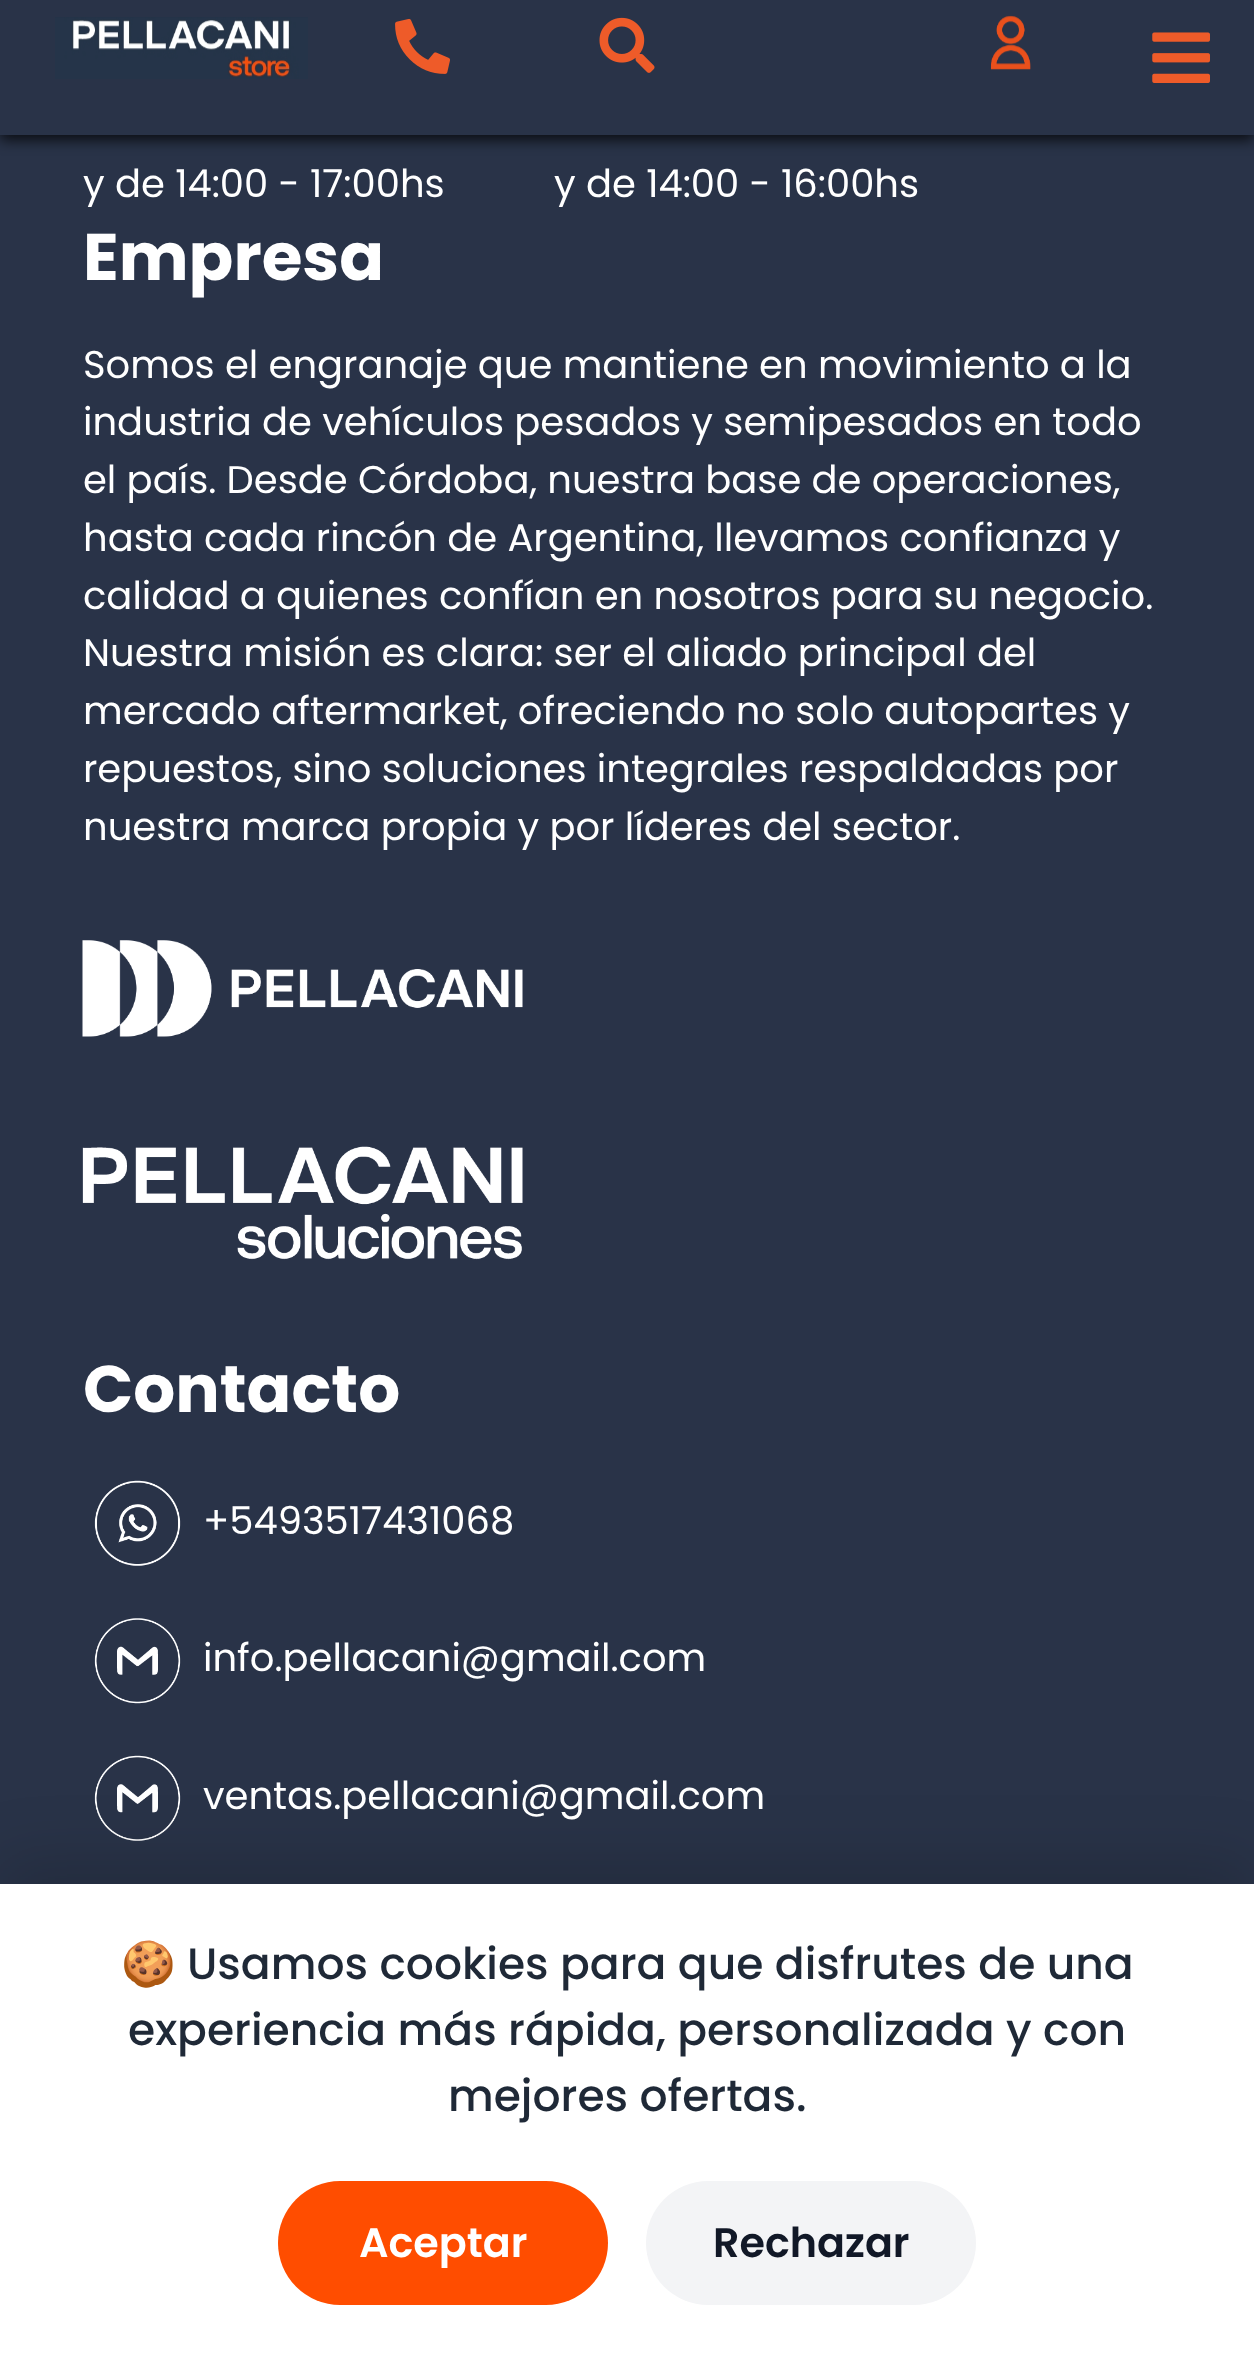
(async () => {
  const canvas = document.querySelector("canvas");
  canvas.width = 1254;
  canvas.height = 2354;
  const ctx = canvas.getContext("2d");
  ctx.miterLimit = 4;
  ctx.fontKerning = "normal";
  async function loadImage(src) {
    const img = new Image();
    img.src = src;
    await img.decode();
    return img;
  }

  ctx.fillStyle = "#293348";
  ctx.fillRect(0, 0, 1254, 2354);
  ctx.fillStyle = "rgba(0, 0, 0, 0.75)";
  ctx.filter = "blur(7px)";
  ctx.beginPath();
  ctx.rect(0, 6, 1254, 134);
  ctx.fill();
  ctx.filter = "none";
  ctx.fillStyle = "#293348";
  ctx.fillRect(0, 0, 1254, 135);
  ctx.drawImage(await loadImage("img/1.png"), 55, 17, 253, 62);
  ctx.drawImage(await loadImage("img/2.png"), 395, 18, 55, 56);
  ctx.drawImage(await loadImage("img/3.png"), 599, 17, 56, 56);
  ctx.drawImage(await loadImage("img/4.png"), 990, 15, 41, 55);
  ctx.drawImage(await loadImage("img/5.png"), 1152, 32, 58, 51);
  ctx.drawImage(await loadImage("img/6.png"), 82, 940, 441, 97);
  ctx.drawImage(await loadImage("img/7.png"), 82, 1146, 441, 114);
  ctx.drawImage(await loadImage("img/8.png"), 94, 1480, 87, 86);
  ctx.drawImage(await loadImage("img/9.png"), 94, 1618, 87, 86);
  ctx.drawImage(await loadImage("img/10.png"), 94, 1755, 87, 86);
  ctx.fillStyle = "rgba(0, 0, 0, 0.15)";
  ctx.filter = "blur(33px)";
  ctx.beginPath();
  ctx.rect(0, 1862, 1254, 470);
  ctx.fill();
  ctx.filter = "none";
  ctx.fillStyle = "#ffffff";
  ctx.fillRect(0, 1884, 1254, 470);
  ctx.fillStyle = "#ff4d00";
  ctx.beginPath();
  ctx.roundRect(278, 2181, 330, 124, 62);
  ctx.fill();
  ctx.fillStyle = "#f3f4f6";
  ctx.beginPath();
  ctx.roundRect(646, 2181, 330, 124, 62);
  ctx.fill();
  ctx.font = "38.5px Poppins";
  ctx.fillStyle = "#ffffff";
  ctx.fillText("y de 14:00 - 17:00hs", 83, 197);
  ctx.fillText("y de 14:00 - 16:00hs", 554, 197);
  ctx.font = "bold 66px Poppins";
  ctx.fillText("Empresa", 83, 280);
  ctx.font = "38.5px Poppins";
  for (const [text, x, y] of [
    ["Somos el engranaje que mantiene en movimiento a la", 83, 378],
    ["industria de vehículos pesados y semipesados en todo", 83, 435],
    ["el país. Desde Córdoba, nuestra base de operaciones,", 83, 493],
    ["hasta cada rincón de Argentina, llevamos confianza y", 83, 551],
    ["calidad a quienes confían en nosotros para su negocio.", 83, 609],
    ["Nuestra misión es clara: ser el aliado principal del", 83, 666],
    ["mercado aftermarket, ofreciendo no solo autopartes y", 83, 724],
    ["repuestos, sino soluciones integrales respaldadas por", 83, 782],
    ["nuestra marca propia y por líderes del sector.", 83, 840],
  ]) {
    ctx.fillText(text, x, y);
  }
  ctx.font = "bold 66px Poppins";
  ctx.fillText("Contacto", 83, 1412);
  ctx.font = "38.5px Poppins";
  for (const [text, x, y] of [
    ["+5493517431068", 203, 1534],
    ["info.pellacani@gmail.com", 203, 1671],
    ["ventas.pellacani@gmail.com", 203, 1809],
  ]) {
    ctx.fillText(text, x, y);
  }
  ctx.font = "44px Noto Color Emoji";
  ctx.fillStyle = "#1f2937";
  ctx.fillText("🍪", 121, 1979);
  ctx.font = "500 44px Poppins";
  for (const [text, x, y] of [
    ["Usamos cookies para que disfrutes de una", 187, 1979],
    ["experiencia más rápida, personalizada y con", 128, 2045],
    ["mejores ofertas.", 448, 2111],
  ]) {
    ctx.fillText(text, x, y);
  }
  ctx.font = "600 41.25px Poppins";
  ctx.fillStyle = "#ffffff";
  ctx.fillText("Aceptar", 359, 2257);
  ctx.fillStyle = "#111827";
  ctx.fillText("Rechazar", 713, 2257);
})();
